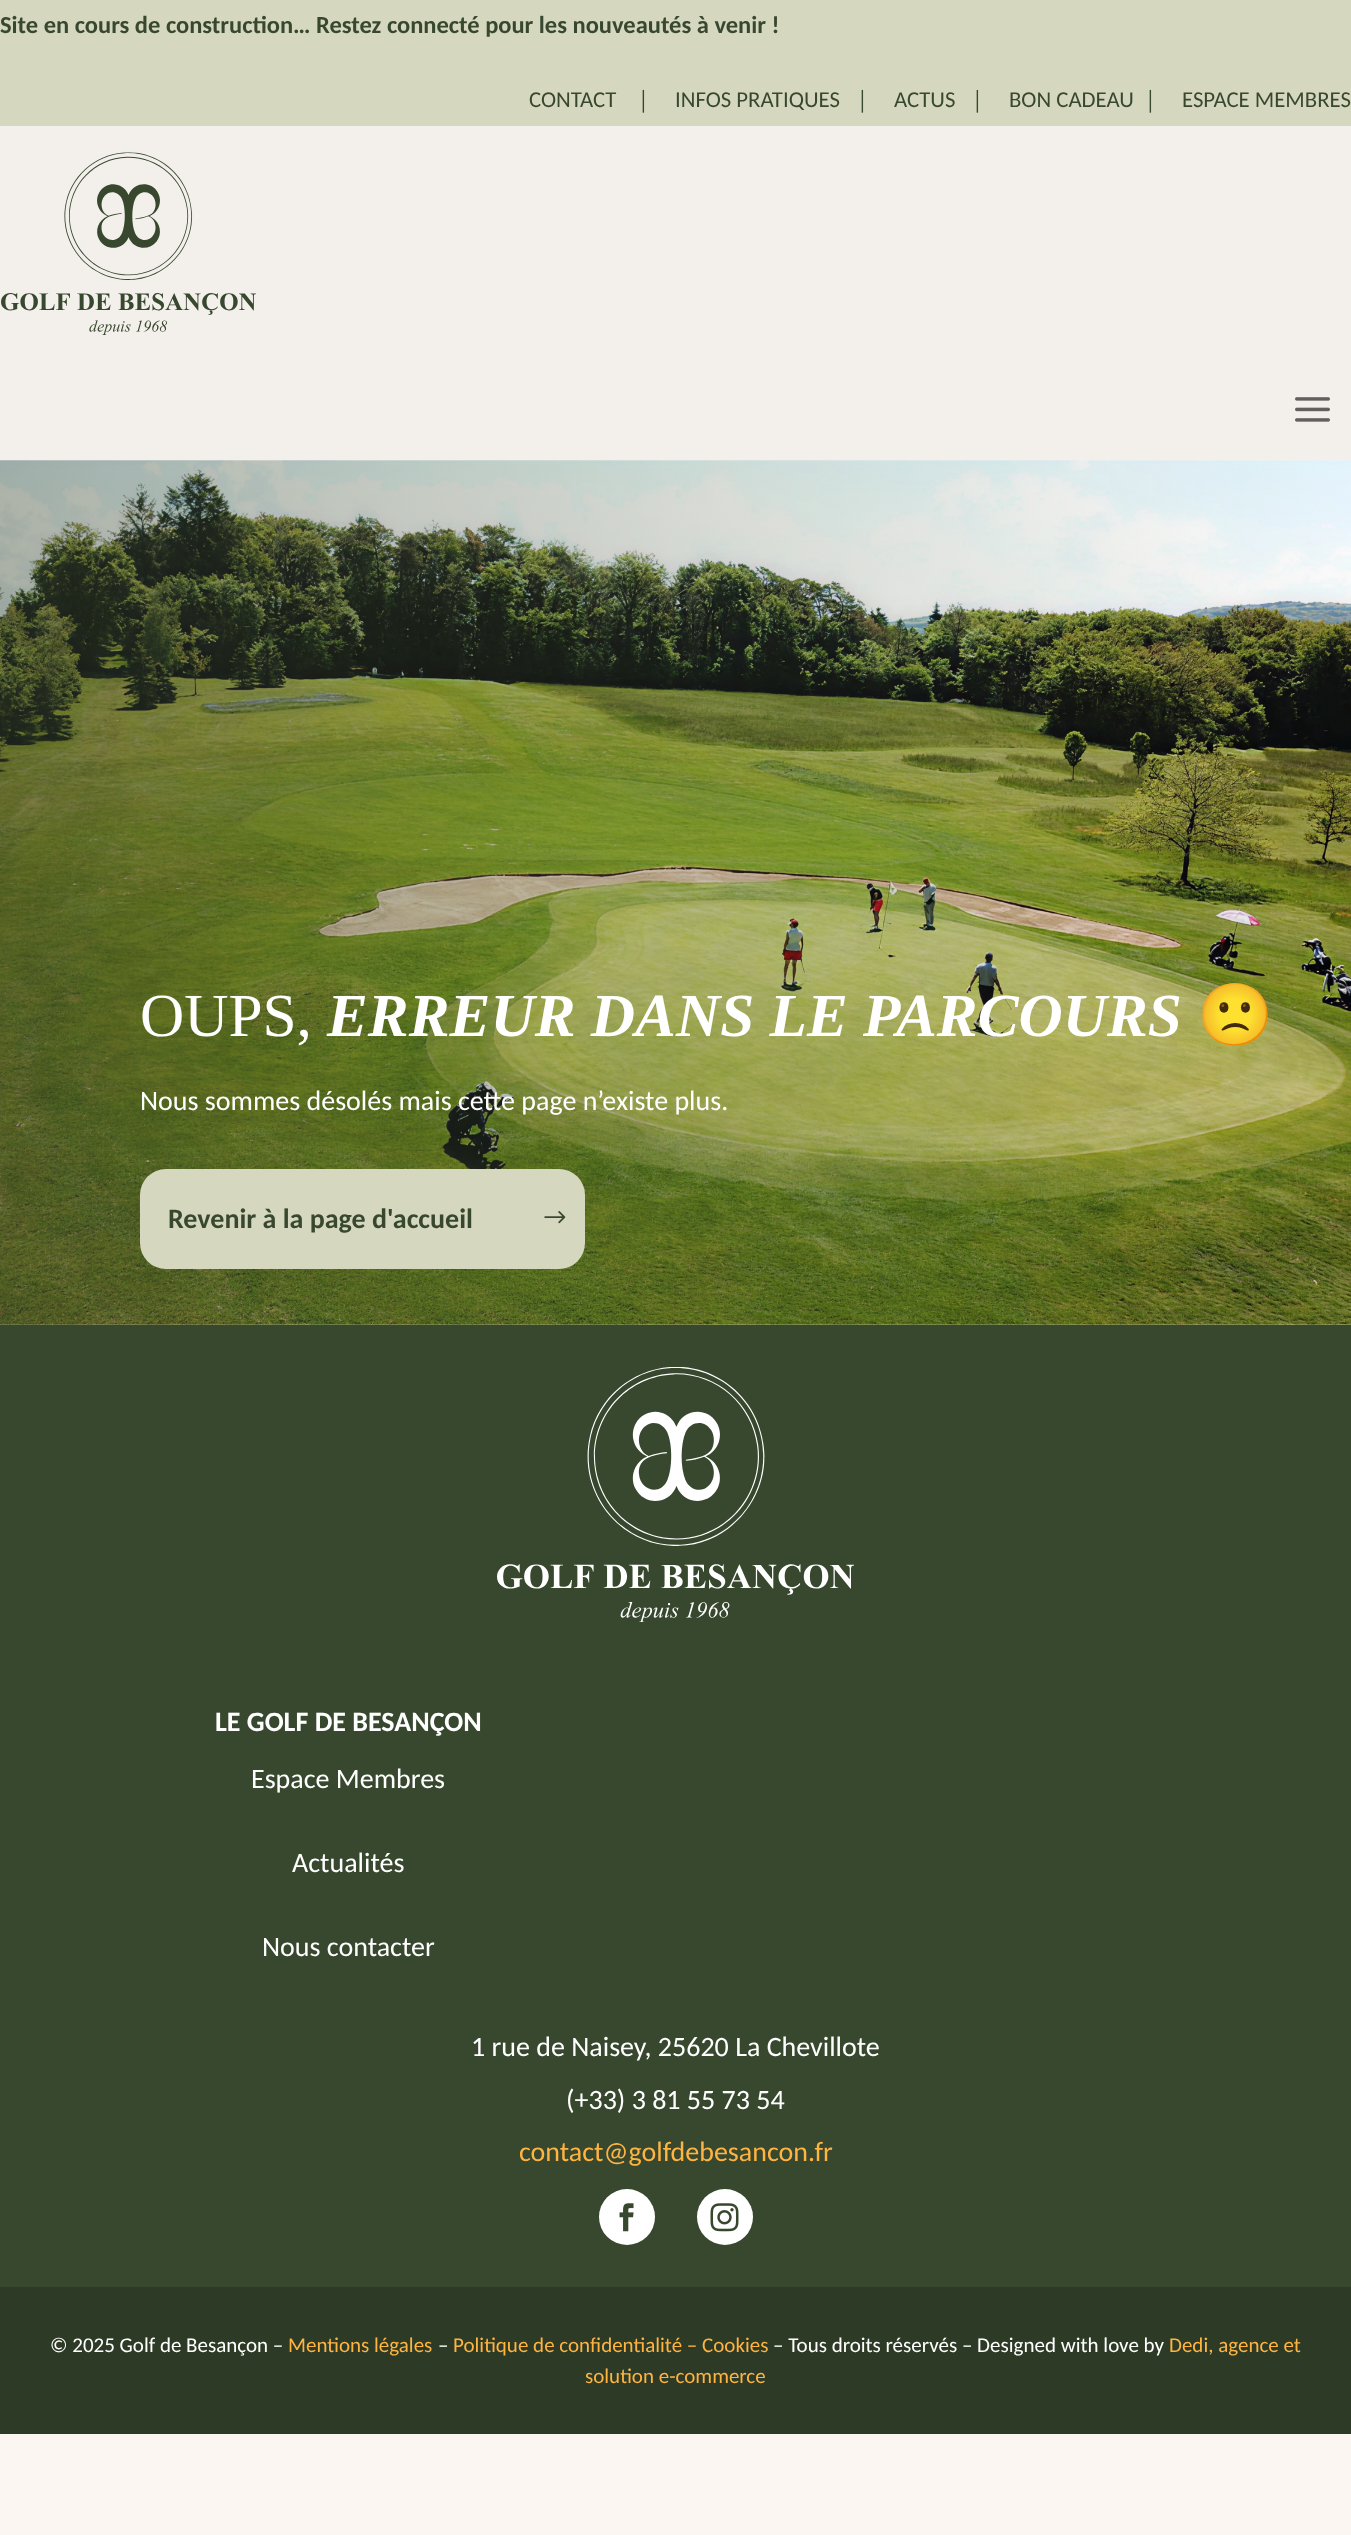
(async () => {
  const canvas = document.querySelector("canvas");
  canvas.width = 1351;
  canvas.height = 2535;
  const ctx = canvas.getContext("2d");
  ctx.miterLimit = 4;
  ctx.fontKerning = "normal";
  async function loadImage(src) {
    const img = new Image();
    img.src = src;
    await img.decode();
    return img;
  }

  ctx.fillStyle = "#fbf6f2";
  ctx.fillRect(0, 0, 1351, 2535);
  ctx.fillStyle = "#d6d7bf";
  ctx.fillRect(0, 0, 1351, 126);
  ctx.fillStyle = "#f3efeb";
  ctx.fillRect(0, 126, 1351, 334);
  ctx.drawImage(await loadImage("img/1.png"), 1, 152, 255, 183);
  ctx.drawImage(await loadImage("img/2.png"), 1295, 397, 35, 25);
  ctx.drawImage(await loadImage("img/3.png"), 0, 460, 1351, 865);
  ctx.fillStyle = "#d6d7bf";
  ctx.beginPath();
  ctx.roundRect(140, 1169, 445, 100, 26);
  ctx.fill();
  ctx.drawImage(await loadImage("img/4.png"), 544, 1211, 22, 13);
  ctx.fillStyle = "#38482f";
  ctx.fillRect(0, 1325, 1351, 962);
  ctx.drawImage(await loadImage("img/5.png"), 497, 1367, 357, 255);
  ctx.fillStyle = "#ffffff";
  ctx.beginPath();
  ctx.arc(627, 2217, 28, 0, Math.PI * 2);
  ctx.fill();
  ctx.drawImage(await loadImage("img/6.png"), 619, 2203, 15, 29);
  ctx.beginPath();
  ctx.arc(725, 2217, 28, 0, Math.PI * 2);
  ctx.fill();
  ctx.drawImage(await loadImage("img/7.png"), 710, 2203, 29, 29);
  ctx.fillStyle = "#2d3a26";
  ctx.fillRect(0, 2287, 1351, 147);
  ctx.font = "bold 24.5px Carlito";
  ctx.fillStyle = "#38482f";
  ctx.fillText("Site en cours de construction… Restez connecté pour les nouveautés à venir !", 0, 33);
  ctx.font = "22.75px Carlito";
  ctx.fillText("CONTACT", 529, 107);
  ctx.font = "500 22.75px WenQuanYi Zen Hei";
  ctx.fillText("｜", 632, 107);
  ctx.font = "22.75px Carlito";
  ctx.fillText("INFOS PRATIQUES", 675, 107);
  ctx.font = "500 22.75px WenQuanYi Zen Hei";
  ctx.fillText("｜", 851, 107);
  ctx.font = "22.75px Carlito";
  ctx.fillText("ACTUS", 894, 107);
  ctx.font = "500 22.75px WenQuanYi Zen Hei";
  ctx.fillText("｜", 966, 107);
  ctx.font = "22.75px Carlito";
  ctx.fillText("BON CADEAU", 1009, 107);
  ctx.font = "500 22.75px WenQuanYi Zen Hei";
  ctx.fillText("｜", 1139, 107);
  ctx.font = "22.75px Carlito";
  ctx.fillText("ESPACE MEMBRES", 1182, 107);
  ctx.font = "61.25px Liberation Serif";
  ctx.fillStyle = "#ffffff";
  ctx.fillText("OUPS,", 140, 1036);
  ctx.font = "italic bold 61.25px Liberation Serif";
  ctx.fillText("ERREUR DANS LE PARCOURS", 327, 1036);
  ctx.font = "bold 61.25px Noto Color Emoji";
  ctx.fillText("🙁", 1197, 1036);
  ctx.font = "28px Carlito";
  ctx.fillText("Nous sommes désolés mais cette page n’existe plus.", 140, 1110);
  ctx.font = "bold 28px Carlito";
  ctx.fillStyle = "#38482f";
  ctx.fillText("Revenir à la page d'accueil", 168, 1228);
  ctx.fillStyle = "#ffffff";
  ctx.fillText("LE GOLF DE BESANÇON", 215, 1731);
  ctx.font = "28px Carlito";
  for (const [text, x, y] of [
    ["Espace Membres", 251, 1788],
    ["Actualités", 292, 1872],
    ["Nous contacter", 262, 1956],
    ["1 rue de Naisey, 25620 La Chevillote", 471, 2056],
    ["(+33) 3 81 55 73 54", 566, 2109],
  ]) {
    ctx.fillText(text, x, y);
  }
  ctx.fillStyle = "#ffb442";
  ctx.fillText("contact@golfdebesancon.fr", 519, 2161);
  ctx.font = "21px Carlito";
  ctx.fillStyle = "#ffffff";
  ctx.fillText("© 2025 Golf de Besançon –", 50, 2352);
  ctx.fillStyle = "#ffb442";
  ctx.fillText("Mentions légales", 288, 2352);
  ctx.fillStyle = "#ffffff";
  ctx.fillText("–", 438, 2352);
  ctx.fillStyle = "#ffb442";
  ctx.fillText("Politique de confidentialité – Cookies", 453, 2352);
  ctx.fillStyle = "#ffffff";
  ctx.fillText("– Tous droits réservés – Designed with love by", 773, 2352);
  ctx.fillStyle = "#ffb442";
  ctx.fillText("Dedi, agence et", 1169, 2352);
  ctx.fillText("solution e-commerce", 585, 2383);
})();
